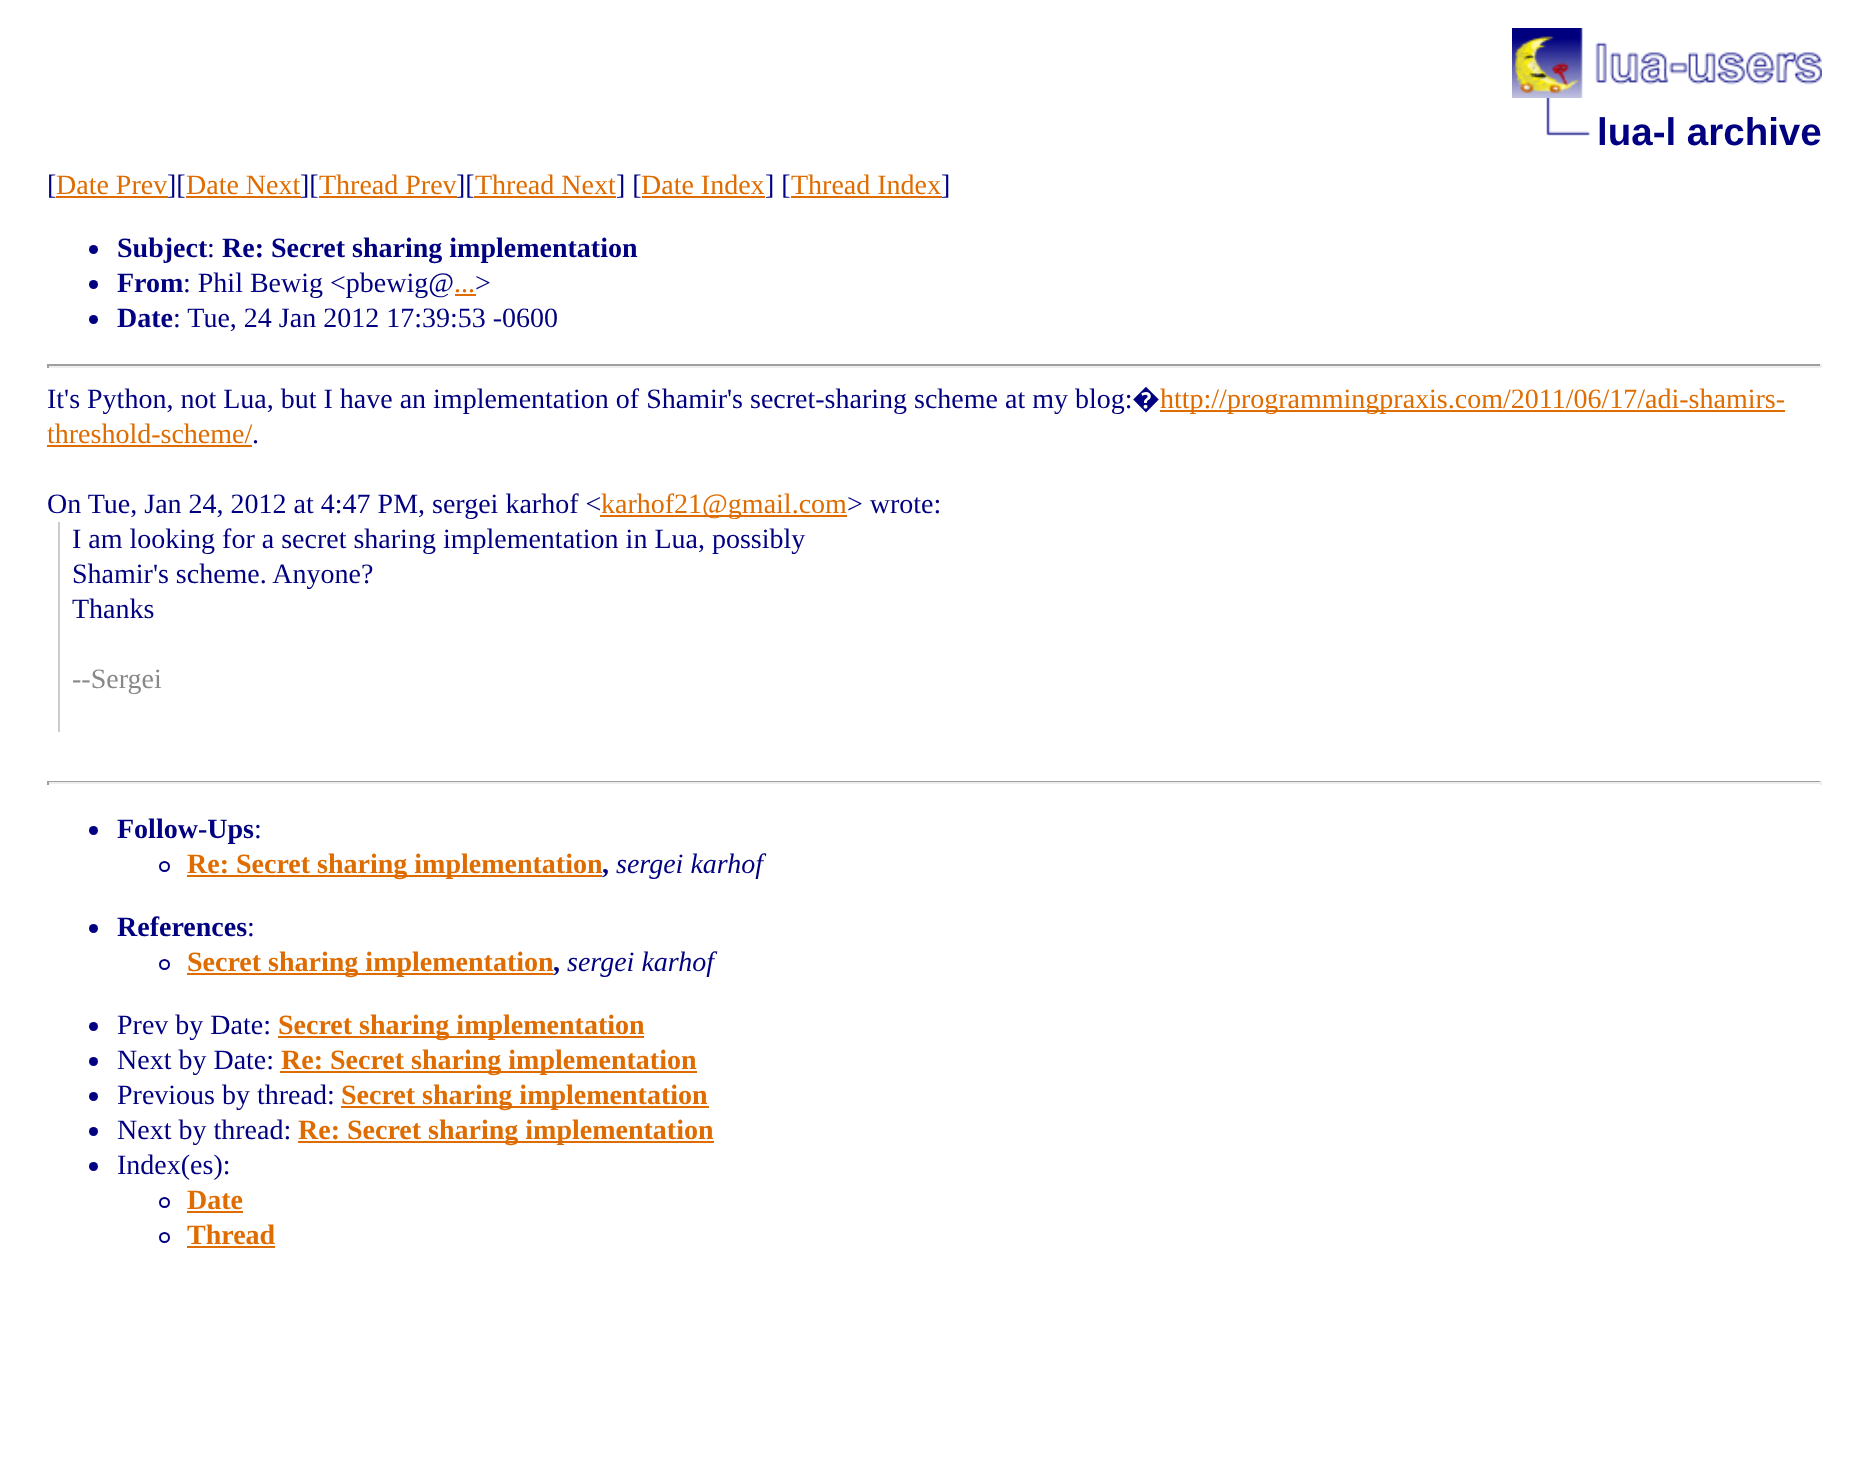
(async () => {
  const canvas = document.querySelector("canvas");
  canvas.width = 1868;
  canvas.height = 1466;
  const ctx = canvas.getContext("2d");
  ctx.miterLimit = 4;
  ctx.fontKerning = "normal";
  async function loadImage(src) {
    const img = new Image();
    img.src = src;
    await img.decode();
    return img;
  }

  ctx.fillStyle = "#ffffff";
  ctx.fillRect(0, 0, 1868, 1466);
  ctx.drawImage(await loadImage("img/1.png"), 1512, 28, 310, 70);
  ctx.drawImage(await loadImage("img/2.png"), 1546, 98, 45, 38);
  for (const [x, y, w, h, color] of [
    [56, 196, 112, 2, "#df6c00"],
    [186, 196, 115, 2, "#df6c00"],
    [319, 196, 138, 2, "#df6c00"],
    [642, 196, 123, 2, "#df6c00"],
    [791, 196, 151, 2, "#df6c00"],
  ]) {
    ctx.fillStyle = color;
    ctx.fillRect(x, y, w, h);
  }
  ctx.fillStyle = "#000080";
  ctx.beginPath();
  ctx.arc(93.5, 249.5, 4.5, 0, Math.PI * 2);
  ctx.fill();
  ctx.beginPath();
  ctx.arc(93.5, 284.5, 4.5, 0, Math.PI * 2);
  ctx.fill();
  ctx.fillStyle = "#df6c00";
  ctx.fillRect(455, 294, 21, 2);
  ctx.fillStyle = "#000080";
  ctx.beginPath();
  ctx.arc(93.5, 319.5, 4.5, 0, Math.PI * 2);
  ctx.fill();
  for (const [x, y, w, h, color] of [
    [47, 364, 1775, 2, "#9f9f9f"],
    [1820, 364, 2, 4, "#eeeeee"],
    [47, 366, 1775, 2, "#eeeeee"],
    [47, 364, 2, 4, "#9f9f9f"],
    [1160, 410, 625, 2, "#df6c00"],
    [47, 445, 205, 2, "#df6c00"],
    [600, 515, 247, 2, "#df6c00"],
    [58, 522, 2, 210, "#cccccc"],
    [47, 781, 1775, 1, "#9f9f9f"],
    [1820, 781, 2, 4, "#eeeeee"],
    [47, 782, 1775, 2, "#eeeeee"],
    [47, 781, 2, 4, "#9f9f9f"],
  ]) {
    ctx.fillStyle = color;
    ctx.fillRect(x, y, w, h);
  }
  ctx.fillStyle = "#000080";
  ctx.beginPath();
  ctx.arc(93.5, 830.5, 4.5, 0, Math.PI * 2);
  ctx.fill();
  ctx.beginPath();
  ctx.arc(164.5, 866.5, 4.5, 0, Math.PI * 2);
  ctx.strokeStyle = "#000080";
  ctx.lineWidth = 2;
  ctx.stroke();
  ctx.fillStyle = "#df6c00";
  ctx.fillRect(187, 875, 415, 2);
  ctx.fillStyle = "#000080";
  ctx.beginPath();
  ctx.arc(93.5, 928.5, 4.5, 0, Math.PI * 2);
  ctx.fill();
  ctx.beginPath();
  ctx.arc(164.5, 964.5, 4.5, 0, Math.PI * 2);
  ctx.stroke();
  ctx.fillStyle = "#df6c00";
  ctx.fillRect(187, 973, 366, 2);
  ctx.fillStyle = "#000080";
  ctx.beginPath();
  ctx.arc(93.5, 1026.5, 4.5, 0, Math.PI * 2);
  ctx.fill();
  ctx.fillStyle = "#df6c00";
  ctx.fillRect(278, 1036, 366, 2);
  ctx.fillStyle = "#000080";
  ctx.beginPath();
  ctx.arc(93.5, 1061.5, 4.5, 0, Math.PI * 2);
  ctx.fill();
  ctx.fillStyle = "#df6c00";
  ctx.fillRect(280, 1071, 417, 2);
  ctx.fillStyle = "#000080";
  ctx.beginPath();
  ctx.arc(93.5, 1096.5, 4.5, 0, Math.PI * 2);
  ctx.fill();
  ctx.fillStyle = "#df6c00";
  ctx.fillRect(341, 1106, 368, 2);
  ctx.fillStyle = "#000080";
  ctx.beginPath();
  ctx.arc(93.5, 1131.5, 4.5, 0, Math.PI * 2);
  ctx.fill();
  ctx.fillStyle = "#df6c00";
  ctx.fillRect(298, 1141, 416, 2);
  ctx.fillStyle = "#000080";
  ctx.beginPath();
  ctx.arc(93.5, 1166.5, 4.5, 0, Math.PI * 2);
  ctx.fill();
  ctx.beginPath();
  ctx.arc(164.5, 1202.5, 4.5, 0, Math.PI * 2);
  ctx.stroke();
  ctx.fillStyle = "#df6c00";
  ctx.fillRect(187, 1211, 56, 2);
  ctx.beginPath();
  ctx.arc(164.5, 1237.5, 4.5, 0, Math.PI * 2);
  ctx.stroke();
  ctx.fillRect(187, 1246, 88, 2);
  ctx.font = "bold 38.5px Liberation Sans";
  ctx.fillStyle = "#000080";
  ctx.fillText("lua-l archive", 1597, 145);
  ctx.font = "28px Liberation Serif";
  ctx.fillText("[", 47, 194);
  ctx.fillStyle = "#df6c00";
  ctx.fillText("Date Prev", 56, 194);
  ctx.fillStyle = "#000080";
  ctx.fillText("][", 167, 194);
  ctx.fillStyle = "#df6c00";
  ctx.fillText("Date Next", 186, 194);
  ctx.fillStyle = "#000080";
  ctx.fillText("][", 300, 194);
  ctx.fillStyle = "#df6c00";
  ctx.fillText("Thread Prev", 319, 194);
  ctx.fillStyle = "#000080";
  ctx.fillText("][", 456, 194);
  ctx.fillStyle = "#df6c00";
  ctx.fillText("Thread Next", 475, 194);
  ctx.fillRect(474, 196, 142, 2);
  ctx.fillStyle = "#000080";
  ctx.fillText("] [", 616, 194);
  ctx.fillStyle = "#df6c00";
  ctx.fillText("Date Index", 641, 194);
  ctx.fillStyle = "#000080";
  ctx.fillText("] [", 765, 194);
  ctx.fillStyle = "#df6c00";
  ctx.fillText("Thread Index", 791, 194);
  ctx.fillStyle = "#000080";
  ctx.fillText("]", 941, 194);
  ctx.font = "bold 28px Liberation Serif";
  ctx.fillText("Subject", 117, 257);
  ctx.font = "28px Liberation Serif";
  ctx.fillText(":", 207, 257);
  ctx.font = "bold 28px Liberation Serif";
  ctx.fillText("Re: Secret sharing implementation", 222, 257);
  ctx.fillText("From", 117, 292);
  ctx.font = "28px Liberation Serif";
  ctx.fillText(": Phil Bewig <pbewig@", 183, 292);
  ctx.fillText(">", 475, 292);
  ctx.fillStyle = "#df6c00";
  ctx.fillText("...", 454, 292);
  ctx.font = "bold 28px Liberation Serif";
  ctx.fillStyle = "#000080";
  ctx.fillText("Date", 117, 327);
  ctx.font = "28px Liberation Serif";
  ctx.fillText(": Tue, 24 Jan 2012 17:39:53 -0600", 173, 327);
  ctx.fillText("It's Python, not Lua, but I have an implementation of Shamir's secret-sharing scheme at my blog:", 47, 408);
  ctx.font = "28px Noto Sans";
  ctx.fillText("�", 1132, 408);
  ctx.font = "28px Liberation Serif";
  ctx.fillStyle = "#df6c00";
  ctx.fillText("http://programmingpraxis.com/2011/06/17/adi-shamirs-", 1160, 408);
  ctx.fillText("threshold-scheme/", 47, 443);
  ctx.fillStyle = "#000080";
  ctx.fillText(".", 252, 443);
  ctx.fillText("On Tue, Jan 24, 2012 at 4:47 PM, sergei karhof <", 47, 513);
  ctx.fillStyle = "#df6c00";
  ctx.fillText("karhof21@gmail.com", 601, 513);
  ctx.fillStyle = "#000080";
  for (const [text, x, y] of [
    ["> wrote:", 847, 513],
    ["I am looking for a secret sharing implementation in Lua, possibly", 72, 548],
    ["Shamir's scheme. Anyone?", 72, 583],
    ["Thanks", 72, 618],
  ]) {
    ctx.fillText(text, x, y);
  }
  ctx.fillStyle = "#888888";
  ctx.fillText("--Sergei", 72, 688);
  ctx.font = "bold 28px Liberation Serif";
  ctx.fillStyle = "#000080";
  ctx.fillText("Follow-Ups", 117, 838);
  ctx.font = "28px Liberation Serif";
  ctx.fillText(":", 254, 838);
  ctx.font = "bold 28px Liberation Serif";
  ctx.fillStyle = "#df6c00";
  ctx.fillText("Re: Secret sharing implementation", 187, 873);
  ctx.font = "italic 28px Liberation Serif";
  ctx.fillStyle = "#000080";
  ctx.fillText("sergei karhof", 616, 873);
  ctx.font = "bold 28px Liberation Serif";
  ctx.fillText(",", 602, 873);
  ctx.fillText("References", 117, 936);
  ctx.font = "28px Liberation Serif";
  ctx.fillText(":", 247, 936);
  ctx.font = "bold 28px Liberation Serif";
  ctx.fillStyle = "#df6c00";
  ctx.fillText("Secret sharing implementation", 187, 971);
  ctx.font = "italic 28px Liberation Serif";
  ctx.fillStyle = "#000080";
  ctx.fillText("sergei karhof", 567, 971);
  ctx.font = "bold 28px Liberation Serif";
  ctx.fillText(",", 553, 971);
  ctx.font = "28px Liberation Serif";
  ctx.fillText("Prev by Date:", 117, 1034);
  ctx.font = "bold 28px Liberation Serif";
  ctx.fillStyle = "#df6c00";
  ctx.fillText("Secret sharing implementation", 278, 1034);
  ctx.font = "28px Liberation Serif";
  ctx.fillStyle = "#000080";
  ctx.fillText("Next by Date:", 117, 1069);
  ctx.font = "bold 28px Liberation Serif";
  ctx.fillStyle = "#df6c00";
  ctx.fillText("Re: Secret sharing implementation", 281, 1069);
  ctx.font = "28px Liberation Serif";
  ctx.fillStyle = "#000080";
  ctx.fillText("Previous by thread:", 117, 1104);
  ctx.font = "bold 28px Liberation Serif";
  ctx.fillStyle = "#df6c00";
  ctx.fillText("Secret sharing implementation", 341, 1104);
  ctx.font = "28px Liberation Serif";
  ctx.fillStyle = "#000080";
  ctx.fillText("Next by thread:", 117, 1139);
  ctx.font = "bold 28px Liberation Serif";
  ctx.fillStyle = "#df6c00";
  ctx.fillText("Re: Secret sharing implementation", 298, 1139);
  ctx.font = "28px Liberation Serif";
  ctx.fillStyle = "#000080";
  ctx.fillText("Index(es):", 117, 1174);
  ctx.font = "bold 28px Liberation Serif";
  ctx.fillStyle = "#df6c00";
  ctx.fillText("Date", 187, 1209);
  ctx.fillText("Thread", 187, 1244);
})();
